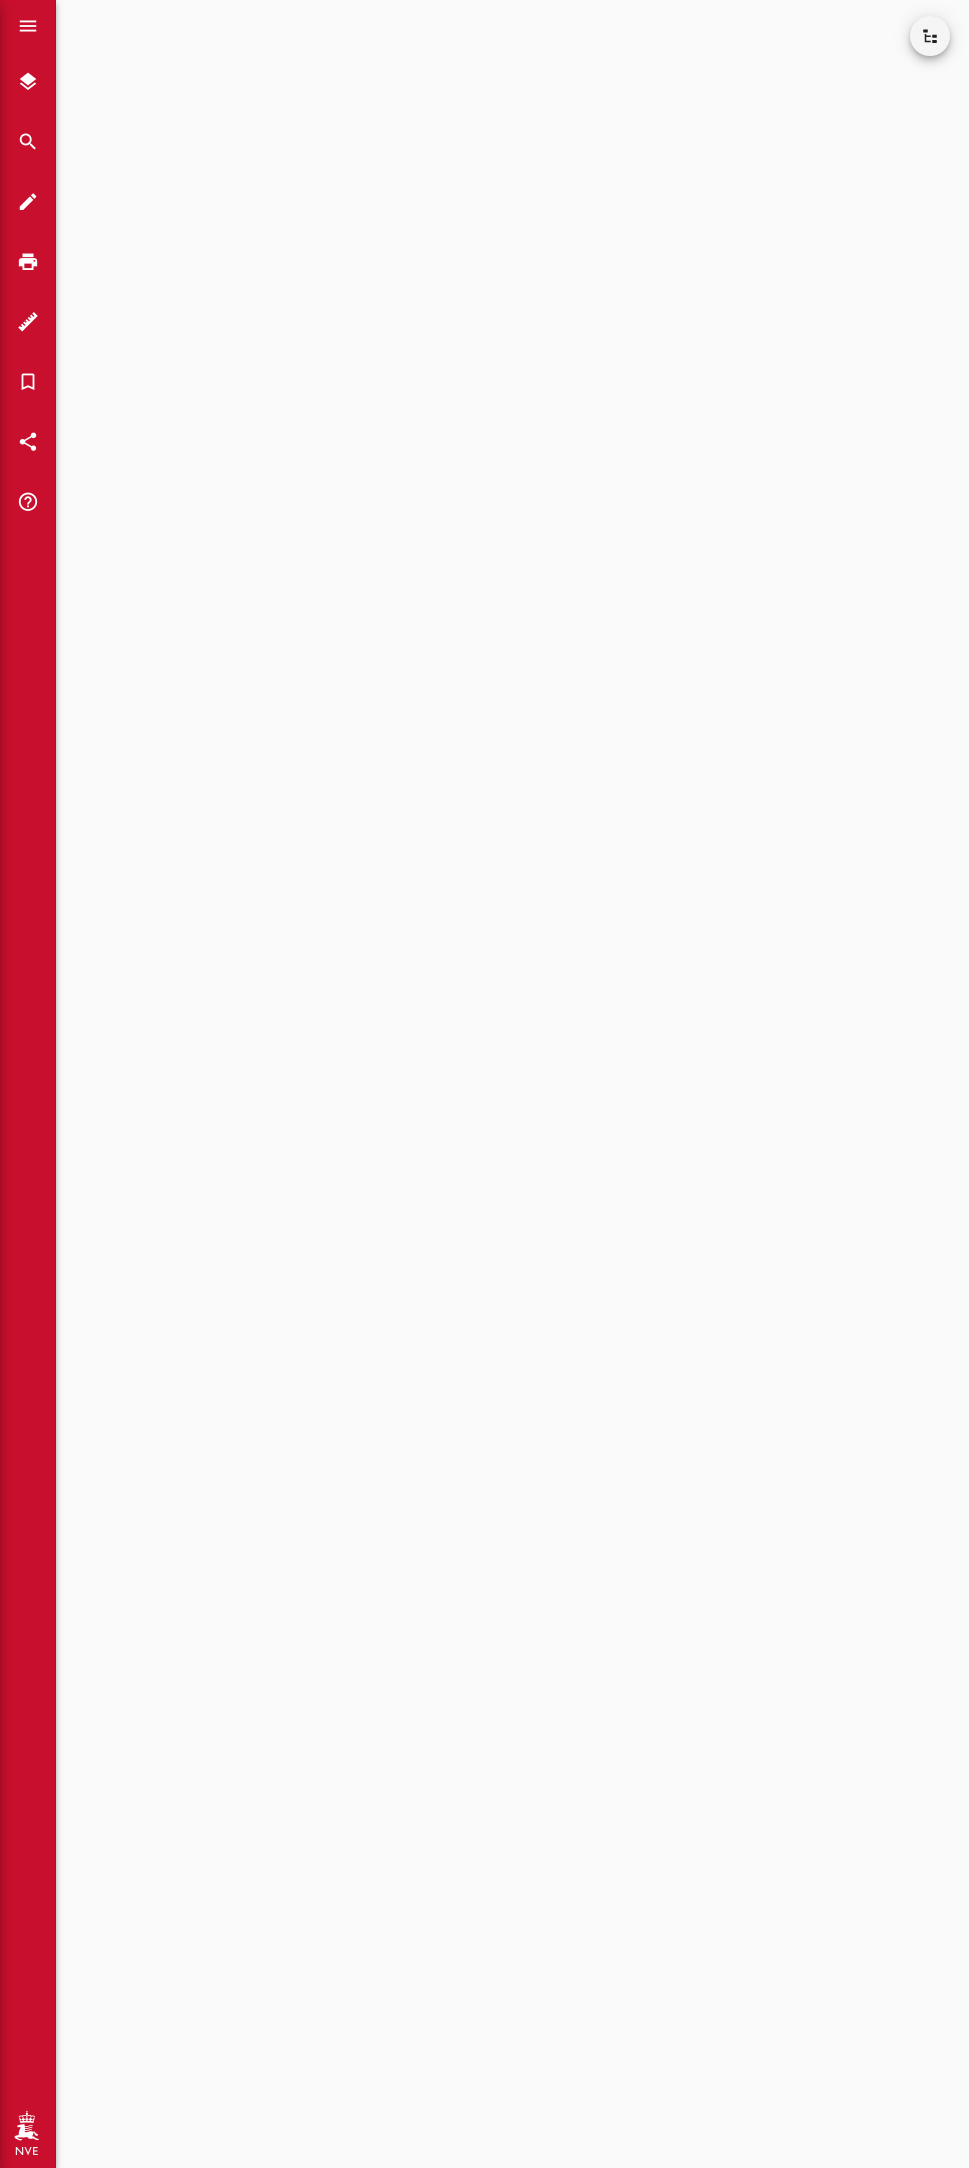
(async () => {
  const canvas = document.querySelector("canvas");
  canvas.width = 969;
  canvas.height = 2168;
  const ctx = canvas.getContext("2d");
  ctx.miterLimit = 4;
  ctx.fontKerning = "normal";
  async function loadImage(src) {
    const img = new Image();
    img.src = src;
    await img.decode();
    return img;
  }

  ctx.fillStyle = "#fafafa";
  ctx.fillRect(0, 0, 969, 2168);
  ctx.fillStyle = "rgba(0, 0, 0, 0.12)";
  ctx.filter = "blur(5px)";
  ctx.beginPath();
  ctx.rect(0, 1, 56, 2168);
  ctx.fill();
  ctx.filter = "none";
  ctx.fillStyle = "rgba(0, 0, 0, 0.14)";
  ctx.filter = "blur(2.5px)";
  ctx.beginPath();
  ctx.rect(0, 4, 56, 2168);
  ctx.fill();
  ctx.filter = "none";
  ctx.fillStyle = "rgba(0, 0, 0, 0.2)";
  ctx.filter = "blur(2px)";
  ctx.beginPath();
  ctx.rect(1, 3, 54, 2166);
  ctx.fill();
  ctx.filter = "none";
  ctx.fillStyle = "#c8102e";
  ctx.fillRect(0, 0, 55, 2168);
  ctx.drawImage(await loadImage("img/1.png"), 19, 20, 18, 12);
  ctx.fillStyle = "#b00e28";
  ctx.fillRect(55, 0, 1, 2168);
  ctx.drawImage(await loadImage("img/2.png"), 19, 72, 18, 18);
  ctx.drawImage(await loadImage("img/3.png"), 19, 133, 17, 17);
  ctx.drawImage(await loadImage("img/4.png"), 19, 193, 18, 17);
  ctx.drawImage(await loadImage("img/5.png"), 18, 253, 20, 17);
  ctx.drawImage(await loadImage("img/6.png"), 18, 312, 20, 20);
  ctx.drawImage(await loadImage("img/7.png"), 21, 373, 14, 17);
  ctx.drawImage(await loadImage("img/8.png"), 19, 432, 18, 19);
  ctx.drawImage(await loadImage("img/9.png"), 18, 492, 20, 19);
  ctx.drawImage(await loadImage("img/10.png"), 14, 2110, 25, 45);
  ctx.fillStyle = "rgba(0, 0, 0, 0.12)";
  ctx.filter = "blur(7px)";
  ctx.beginPath();
  ctx.rect(-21, 1, 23, 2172);
  ctx.fill();
  ctx.filter = "none";
  ctx.fillStyle = "rgba(0, 0, 0, 0.14)";
  ctx.filter = "blur(5px)";
  ctx.beginPath();
  ctx.rect(-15, 7, 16, 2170);
  ctx.fill();
  ctx.filter = "none";
  ctx.fillStyle = "rgba(0, 0, 0, 0.12)";
  ctx.filter = "blur(9px)";
  ctx.beginPath();
  ctx.roundRect(910, 17, 40, 40, 20);
  ctx.fill();
  ctx.filter = "none";
  ctx.fillStyle = "rgba(0, 0, 0, 0.14)";
  ctx.filter = "blur(5px)";
  ctx.beginPath();
  ctx.roundRect(910, 22, 40, 40, 20);
  ctx.fill();
  ctx.filter = "none";
  ctx.fillStyle = "rgba(0, 0, 0, 0.2)";
  ctx.filter = "blur(2.5px)";
  ctx.beginPath();
  ctx.roundRect(911, 20, 38, 38, 19);
  ctx.fill();
  ctx.filter = "none";
  ctx.fillStyle = "#f5f5f5";
  ctx.beginPath();
  ctx.arc(930, 36, 20, 0, Math.PI * 2);
  ctx.fill();
  ctx.drawImage(await loadImage("img/11.png"), 923, 29, 14, 14);
})();
